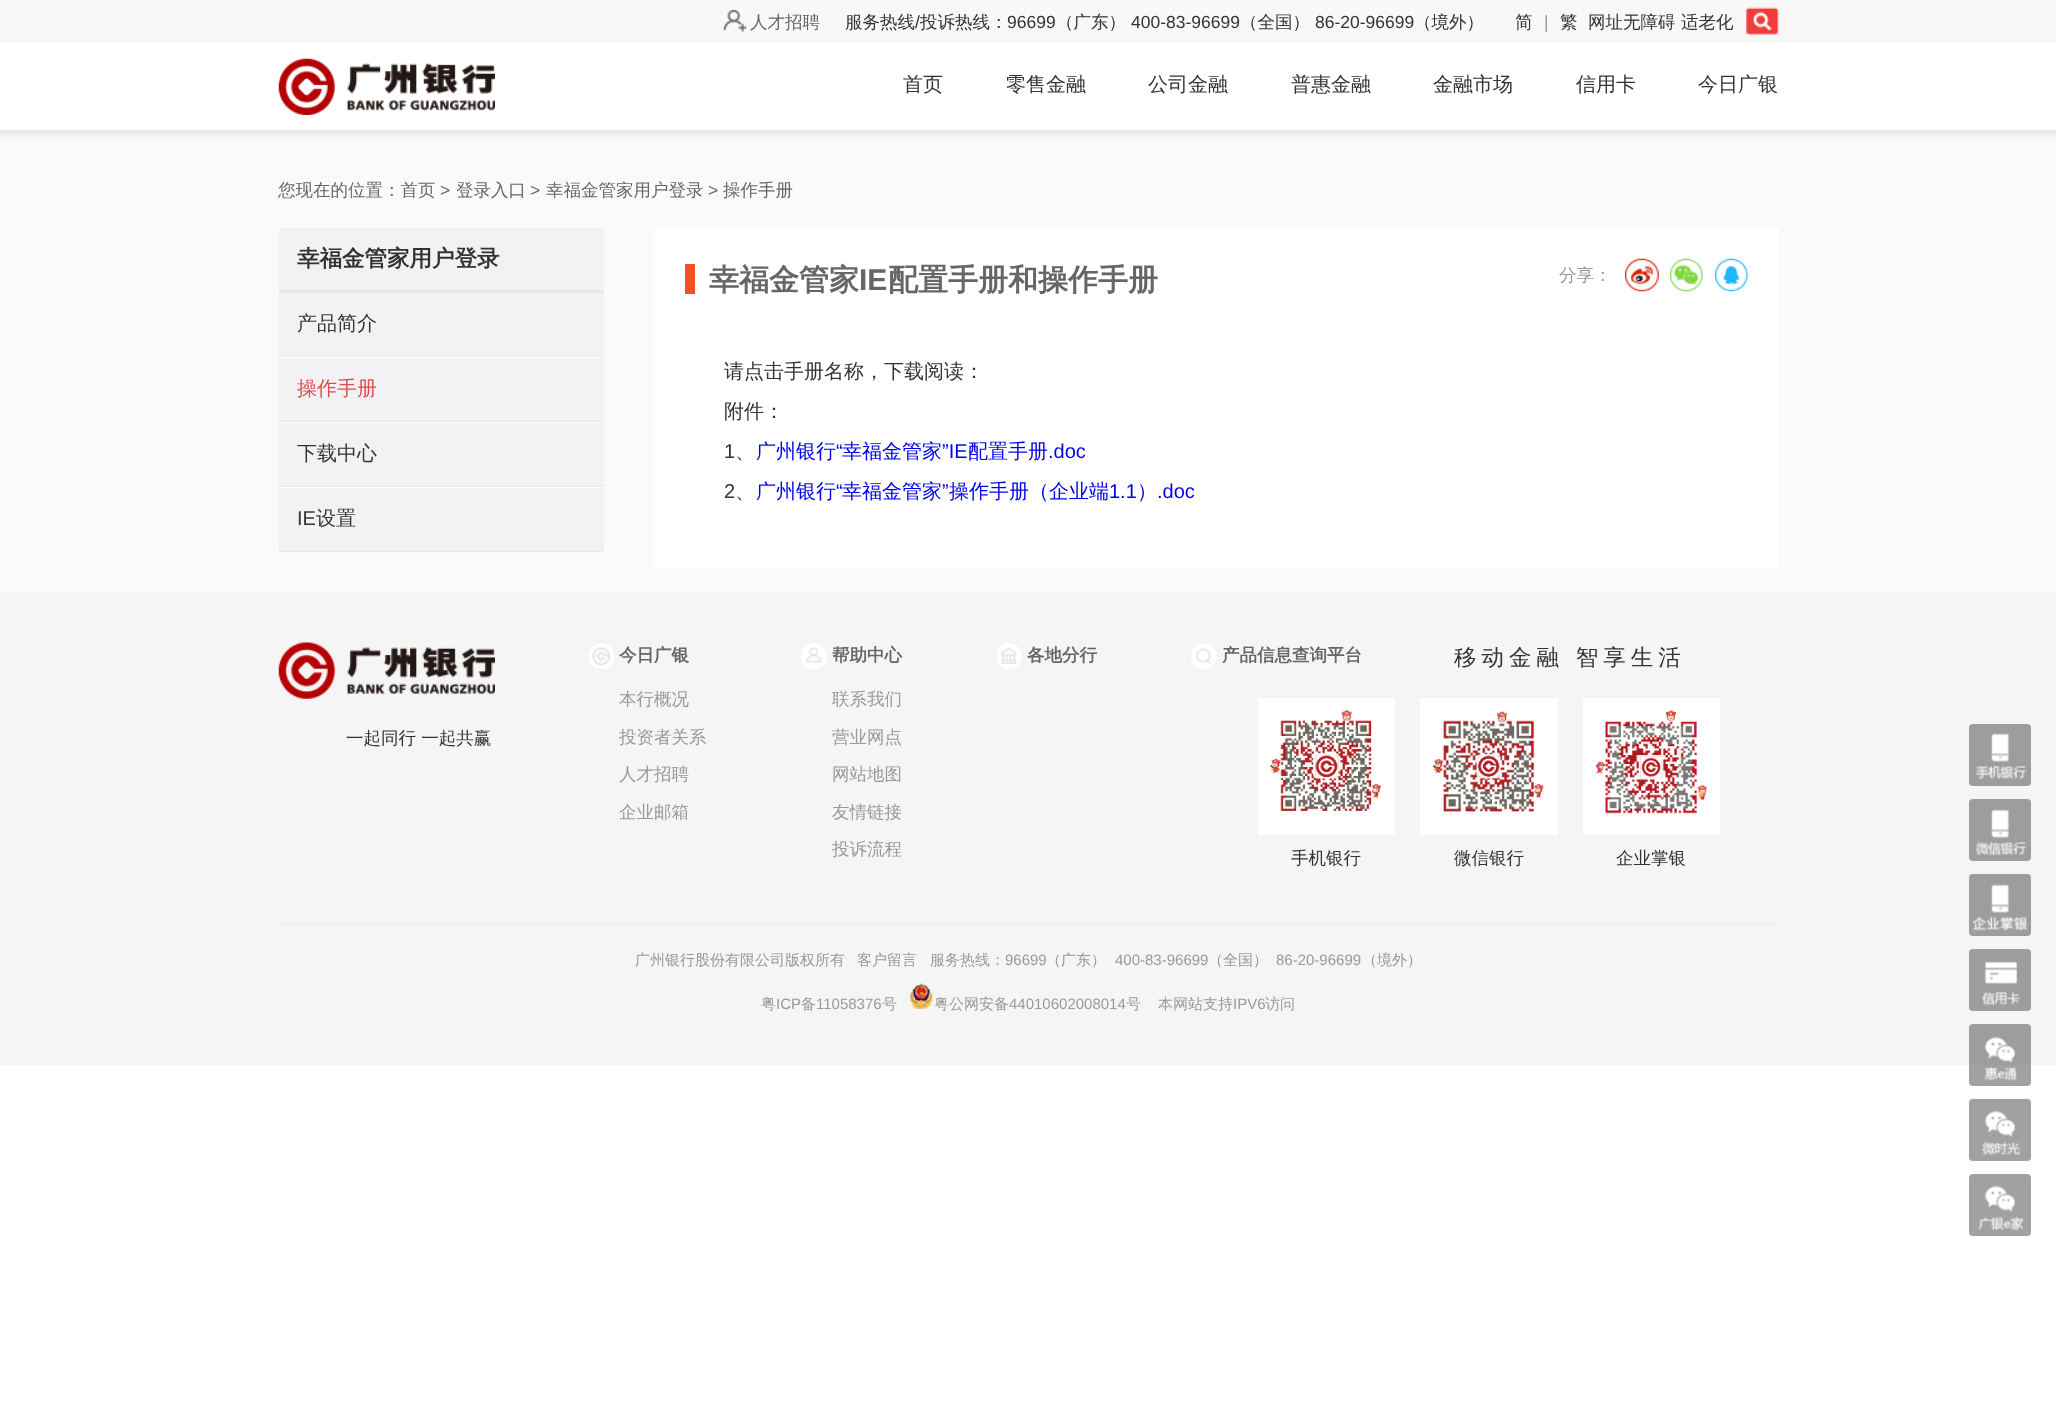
(async () => {
  const canvas = document.querySelector("canvas");
  canvas.width = 2056;
  canvas.height = 1418;
  const ctx = canvas.getContext("2d");
  ctx.miterLimit = 4;
  ctx.fontKerning = "normal";
  async function loadImage(src) {
    const img = new Image();
    img.src = src;
    await img.decode();
    return img;
  }

  ctx.fillStyle = "#ffffff";
  ctx.fillRect(0, 0, 2056, 1418);
  ctx.fillStyle = "#fafafa";
  ctx.fillRect(0, 130, 2056, 463);
  ctx.save();
  ctx.beginPath();
  ctx.rect(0, 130, 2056, 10);
  ctx.clip();
  ctx.fillStyle = "#e5e5e5";
  ctx.filter = "blur(3px)";
  ctx.beginPath();
  ctx.rect(-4, -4, 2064, 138);
  ctx.fill();
  ctx.filter = "none";
  ctx.restore();
  ctx.fillStyle = "#faf7f7";
  ctx.fillRect(0, 0, 2056, 43);
  ctx.drawImage(await loadImage("img/1.png"), 723, 10, 24, 22);
  ctx.drawImage(await loadImage("img/2.png"), 1746, 7, 33, 28);
  ctx.drawImage(await loadImage("img/3.png"), 278, 58, 217, 57);
  ctx.fillStyle = "#f5f5f5";
  ctx.fillRect(0, 593, 2056, 472);
  ctx.fillStyle = "#9d9d9d";
  ctx.beginPath();
  ctx.roundRect(1969, 724, 62, 62, 4);
  ctx.fill();
  ctx.drawImage(await loadImage("img/4.png"), 1975, 733, 52, 47);
  ctx.beginPath();
  ctx.roundRect(1969, 799, 62, 62, 4);
  ctx.fill();
  ctx.drawImage(await loadImage("img/5.png"), 1975, 809, 52, 47);
  ctx.beginPath();
  ctx.roundRect(1969, 874, 62, 62, 4);
  ctx.fill();
  ctx.drawImage(await loadImage("img/6.png"), 1972, 884, 56, 47);
  ctx.beginPath();
  ctx.roundRect(1969, 949, 62, 62, 4);
  ctx.fill();
  ctx.drawImage(await loadImage("img/7.png"), 1981, 961, 39, 45);
  ctx.fillStyle = "rgba(98, 98, 98, 0.6)";
  ctx.beginPath();
  ctx.roundRect(1969, 1024, 62, 62, 4);
  ctx.fill();
  ctx.drawImage(await loadImage("img/8.png"), 1984, 1036, 33, 45);
  ctx.fillStyle = "#a1a1a1";
  ctx.beginPath();
  ctx.roundRect(1969, 1099, 62, 62, 4);
  ctx.fill();
  ctx.drawImage(await loadImage("img/9.png"), 1981, 1110, 39, 46);
  ctx.beginPath();
  ctx.roundRect(1969, 1174, 62, 62, 4);
  ctx.fill();
  ctx.drawImage(await loadImage("img/10.png"), 1978, 1185, 46, 46);
  for (const [x, y, w, h, color] of [
    [279, 228, 325, 62, "#f2f2f5"],
    [279, 290, 325, 3, "#e8e8e8"],
    [279, 357, 325, 196, "#ffffff"],
    [279, 356, 325, 1, "#e8e8e8"],
    [279, 293, 325, 63, "#f2f2f5"],
    [279, 421, 325, 1, "#e8e8e8"],
    [279, 358, 325, 63, "#f2f2f5"],
    [279, 486, 325, 1, "#e8e8e8"],
    [279, 423, 325, 63, "#f2f2f5"],
    [279, 551, 325, 1, "#e8e8e8"],
    [279, 488, 325, 63, "#f2f2f5"],
    [654, 228, 1125, 340, "#ffffff"],
    [685, 264, 10, 30, "#ec531e"],
  ]) {
    ctx.fillStyle = color;
    ctx.fillRect(x, y, w, h);
  }
  ctx.drawImage(await loadImage("img/11.png"), 1625, 258, 34, 34);
  ctx.drawImage(await loadImage("img/12.png"), 1670, 258, 33, 34);
  ctx.drawImage(await loadImage("img/13.png"), 1715, 258, 33, 34);
  ctx.drawImage(await loadImage("img/14.png"), 278, 642, 217, 57);
  ctx.drawImage(await loadImage("img/15.png"), 588, 643, 26, 26);
  ctx.drawImage(await loadImage("img/16.png"), 801, 643, 26, 26);
  ctx.drawImage(await loadImage("img/17.png"), 996, 643, 26, 26);
  ctx.drawImage(await loadImage("img/18.png"), 1191, 643, 26, 26);
  ctx.fillStyle = "#ffffff";
  ctx.fillRect(1258, 698, 137, 137);
  ctx.drawImage(await loadImage("img/19.png"), 1270, 710, 112, 102);
  ctx.fillRect(1420, 698, 138, 137);
  ctx.drawImage(await loadImage("img/20.png"), 1432, 710, 112, 102);
  ctx.fillRect(1583, 698, 137, 137);
  ctx.drawImage(await loadImage("img/21.png"), 1595, 710, 113, 104);
  ctx.fillStyle = "#eaeaea";
  ctx.fillRect(279, 924, 1500, 1);
  ctx.drawImage(await loadImage("img/22.png"), 909, 983, 24, 26);
  ctx.font = "500 17.5px WenQuanYi Zen Hei";
  ctx.fillStyle = "#666666";
  ctx.fillText("人才招聘", 750, 28);
  ctx.fillStyle = "#333333";
  ctx.fillText("服务热线", 845, 28);
  ctx.font = "17.5px Liberation Sans";
  ctx.fillText("/", 915, 28);
  ctx.font = "500 17.5px WenQuanYi Zen Hei";
  ctx.fillText("投诉热线：", 920, 28);
  ctx.font = "17.5px Liberation Sans";
  ctx.fillText("96699", 1007, 28);
  ctx.font = "500 17.5px WenQuanYi Zen Hei";
  ctx.fillText("（广东）", 1056, 28);
  ctx.font = "17.5px Liberation Sans";
  ctx.fillText("400-83-96699", 1131, 28);
  ctx.font = "500 17.5px WenQuanYi Zen Hei";
  ctx.fillText("（全国）", 1240, 28);
  ctx.font = "17.5px Liberation Sans";
  ctx.fillText("86-20-96699", 1315, 28);
  ctx.font = "500 17.5px WenQuanYi Zen Hei";
  ctx.fillText("（境外）", 1414, 28);
  ctx.fillText("简", 1515, 28);
  ctx.font = "17.5px Liberation Sans";
  ctx.fillStyle = "#999999";
  ctx.fillText("|", 1544, 28);
  ctx.font = "500 17.5px WenQuanYi Zen Hei";
  ctx.fillStyle = "#333333";
  for (const [text, x, y] of [
    ["繁", 1560, 28],
    ["网址无障碍", 1588, 28],
    ["适老化", 1681, 28],
  ]) {
    ctx.fillText(text, x, y);
  }
  ctx.font = "500 20px WenQuanYi Zen Hei";
  for (const [text, x, y] of [
    ["首页", 903, 91],
    ["零售金融", 1006, 91],
    ["公司金融", 1148, 91],
    ["普惠金融", 1291, 91],
    ["金融市场", 1433, 91],
    ["信用卡", 1576, 91],
    ["今日广银", 1698, 91],
  ]) {
    ctx.fillText(text, x, y);
  }
  ctx.font = "500 17.5px WenQuanYi Zen Hei";
  ctx.fillStyle = "#666666";
  ctx.fillText("您现在的位置：首页", 278, 196);
  ctx.font = "17.5px Liberation Sans";
  ctx.fillText(">", 440, 196);
  ctx.font = "500 17.5px WenQuanYi Zen Hei";
  ctx.fillText("登录入口", 456, 196);
  ctx.font = "17.5px Liberation Sans";
  ctx.fillText(">", 530, 196);
  ctx.font = "500 17.5px WenQuanYi Zen Hei";
  ctx.fillText("幸福金管家用户登录", 546, 196);
  ctx.font = "17.5px Liberation Sans";
  ctx.fillText(">", 708, 196);
  ctx.font = "500 17.5px WenQuanYi Zen Hei";
  ctx.fillText("操作手册", 723, 196);
  ctx.font = "bold 22.5px WenQuanYi Zen Hei";
  ctx.fillStyle = "#333333";
  ctx.fillText("幸福金管家用户登录", 297, 266);
  ctx.font = "500 20px WenQuanYi Zen Hei";
  ctx.fillText("产品简介", 297, 330);
  ctx.fillStyle = "#dc4d4d";
  ctx.fillText("操作手册", 297, 395);
  ctx.fillStyle = "#333333";
  ctx.fillText("下载中心", 297, 460);
  ctx.font = "20px Liberation Sans";
  ctx.fillText("IE", 297, 525);
  ctx.font = "500 20px WenQuanYi Zen Hei";
  ctx.fillText("设置", 316, 525);
  ctx.font = "bold 30px WenQuanYi Zen Hei";
  ctx.fillStyle = "#666666";
  ctx.fillText("幸福金管家", 709, 290);
  ctx.font = "bold 30px Liberation Sans";
  ctx.fillText("IE", 859, 290);
  ctx.font = "bold 30px WenQuanYi Zen Hei";
  ctx.fillText("配置手册和操作手册", 888, 290);
  ctx.font = "500 17.5px WenQuanYi Zen Hei";
  ctx.fillStyle = "#999999";
  ctx.fillText("分享：", 1559, 281);
  ctx.font = "500 20px WenQuanYi Zen Hei";
  ctx.fillStyle = "#333333";
  ctx.fillText("请点击手册名称，下载阅读：", 724, 378);
  ctx.fillText("附件：", 724, 418);
  ctx.font = "20px Liberation Sans";
  ctx.fillText("1", 724, 458);
  ctx.font = "500 20px WenQuanYi Zen Hei";
  ctx.fillStyle = "#0000ee";
  ctx.fillText("广州银行", 756, 458);
  ctx.font = "20px Liberation Sans";
  ctx.fillText("“", 836, 458);
  ctx.font = "500 20px WenQuanYi Zen Hei";
  ctx.fillText("幸福金管家", 842, 458);
  ctx.font = "20px Liberation Sans";
  ctx.fillText("”IE", 942, 458);
  ctx.font = "500 20px WenQuanYi Zen Hei";
  ctx.fillText("配置手册", 968, 458);
  ctx.font = "20px Liberation Sans";
  ctx.fillText(".doc", 1048, 458);
  ctx.font = "500 20px WenQuanYi Zen Hei";
  ctx.fillStyle = "#333333";
  ctx.fillText("、", 735, 458);
  ctx.font = "20px Liberation Sans";
  ctx.fillText("2", 724, 498);
  ctx.font = "500 20px WenQuanYi Zen Hei";
  ctx.fillText("、", 735, 498);
  ctx.fillStyle = "#0000ee";
  ctx.fillText("广州银行", 756, 498);
  ctx.font = "20px Liberation Sans";
  ctx.fillText("“", 836, 498);
  ctx.font = "500 20px WenQuanYi Zen Hei";
  ctx.fillText("幸福金管家", 842, 498);
  ctx.font = "20px Liberation Sans";
  ctx.fillText("”", 942, 498);
  ctx.font = "500 20px WenQuanYi Zen Hei";
  ctx.fillText("操作手册（企业端", 949, 498);
  ctx.font = "20px Liberation Sans";
  ctx.fillText("1.1", 1109, 498);
  ctx.font = "500 20px WenQuanYi Zen Hei";
  ctx.fillText("）", 1137, 498);
  ctx.font = "20px Liberation Sans";
  ctx.fillText(".doc", 1157, 498);
  ctx.font = "500 17.5px WenQuanYi Zen Hei";
  ctx.fillStyle = "#333333";
  ctx.fillText("一起同行 一起共赢", 346, 744);
  ctx.font = "bold 17.5px WenQuanYi Zen Hei";
  ctx.fillStyle = "#666666";
  ctx.fillText("今日广银", 619, 661);
  ctx.font = "500 17.5px WenQuanYi Zen Hei";
  ctx.fillStyle = "#999999";
  for (const [text, x, y] of [
    ["本行概况", 619, 705],
    ["投资者关系", 619, 743],
    ["人才招聘", 619, 780],
    ["企业邮箱", 619, 818],
  ]) {
    ctx.fillText(text, x, y);
  }
  ctx.font = "bold 17.5px WenQuanYi Zen Hei";
  ctx.fillStyle = "#666666";
  ctx.fillText("帮助中心", 832, 661);
  ctx.font = "500 17.5px WenQuanYi Zen Hei";
  ctx.fillStyle = "#999999";
  for (const [text, x, y] of [
    ["联系我们", 832, 705],
    ["营业网点", 832, 743],
    ["网站地图", 832, 780],
    ["友情链接", 832, 818],
    ["投诉流程", 832, 855],
  ]) {
    ctx.fillText(text, x, y);
  }
  ctx.font = "bold 17.5px WenQuanYi Zen Hei";
  ctx.fillStyle = "#666666";
  ctx.fillText("各地分行", 1027, 661);
  ctx.fillText("产品信息查询平台", 1222, 661);
  ctx.letterSpacing = "5px";
  ctx.font = "500 22.5px WenQuanYi Zen Hei";
  ctx.fillStyle = "#333333";
  ctx.fillText("移动金融 智享生活", 1454, 665);
  ctx.letterSpacing = "0px";
  ctx.font = "500 17.5px WenQuanYi Zen Hei";
  for (const [text, x, y] of [
    ["手机银行", 1291, 864],
    ["微信银行", 1454, 864],
    ["企业掌银", 1616, 864],
  ]) {
    ctx.fillText(text, x, y);
  }
  ctx.font = "500 15px WenQuanYi Zen Hei";
  ctx.fillStyle = "#999999";
  for (const [text, x, y] of [
    ["广州银行股份有限公司版权所有", 635, 965],
    ["客户留言", 857, 965],
    ["服务热线：", 930, 965],
  ]) {
    ctx.fillText(text, x, y);
  }
  ctx.font = "15px Liberation Sans";
  ctx.fillText("96699", 1005, 965);
  ctx.font = "500 15px WenQuanYi Zen Hei";
  ctx.fillText("（广东）", 1046, 965);
  ctx.font = "15px Liberation Sans";
  ctx.fillText("400-83-96699", 1115, 965);
  ctx.font = "500 15px WenQuanYi Zen Hei";
  ctx.fillText("（全国）", 1208, 965);
  ctx.font = "15px Liberation Sans";
  ctx.fillText("86-20-96699", 1276, 965);
  ctx.font = "500 15px WenQuanYi Zen Hei";
  ctx.fillText("（境外）", 1362, 965);
  ctx.fillText("粤", 761, 1009);
  ctx.font = "15px Liberation Sans";
  ctx.fillText("ICP", 776, 1009);
  ctx.font = "500 15px WenQuanYi Zen Hei";
  ctx.fillText("备", 801, 1009);
  ctx.font = "15px Liberation Sans";
  ctx.fillText("11058376", 816, 1009);
  ctx.font = "500 15px WenQuanYi Zen Hei";
  ctx.fillText("号", 882, 1009);
  ctx.fillText("粤公网安备", 934, 1009);
  ctx.font = "15px Liberation Sans";
  ctx.fillText("44010602008014", 1009, 1009);
  ctx.font = "500 15px WenQuanYi Zen Hei";
  ctx.fillText("号", 1126, 1009);
  ctx.fillText("本网站支持", 1158, 1009);
  ctx.font = "15px Liberation Sans";
  ctx.fillText("IPV6", 1233, 1009);
  ctx.font = "500 15px WenQuanYi Zen Hei";
  ctx.fillText("访问", 1265, 1009);
})();
